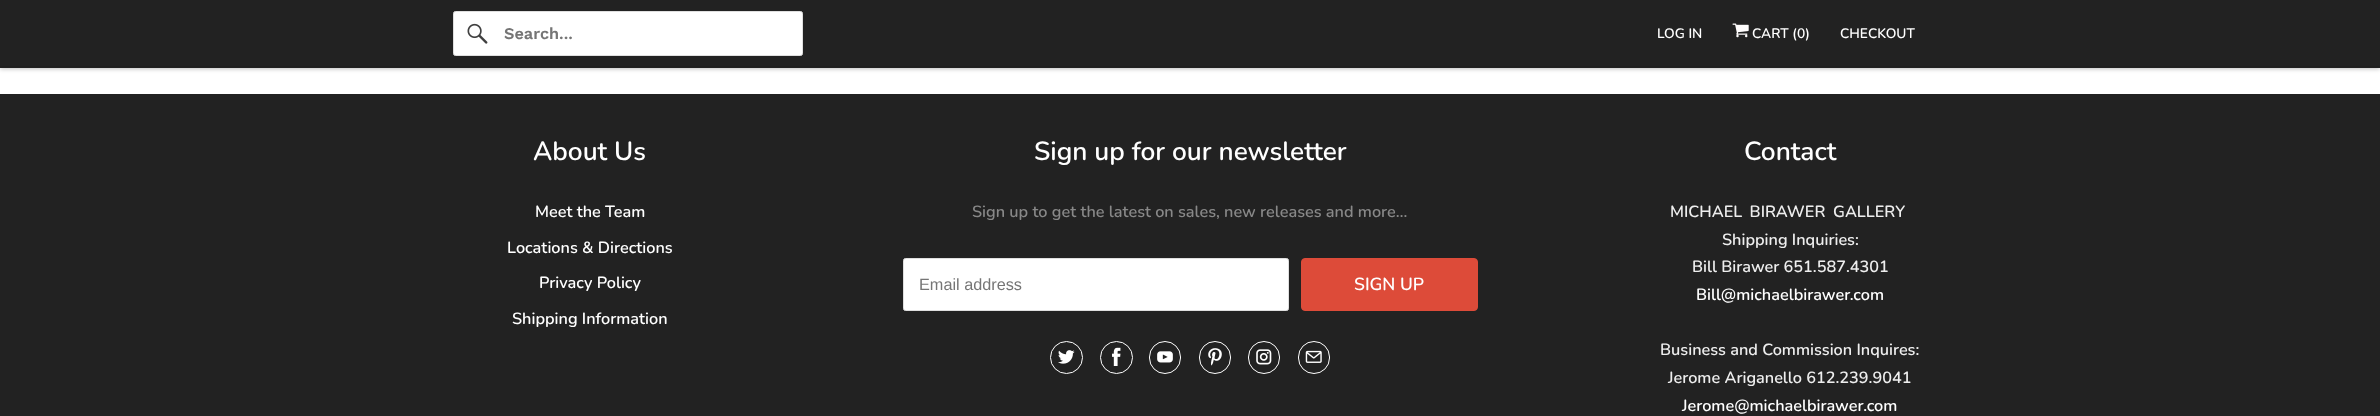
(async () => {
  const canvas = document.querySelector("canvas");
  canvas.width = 2380;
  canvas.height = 416;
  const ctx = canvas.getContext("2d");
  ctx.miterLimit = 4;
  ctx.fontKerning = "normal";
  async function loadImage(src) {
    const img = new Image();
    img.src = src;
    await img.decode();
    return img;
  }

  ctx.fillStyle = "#ffffff";
  ctx.fillRect(0, 0, 2380, 416);
  ctx.fillStyle = "rgba(0, 0, 0, 0.25)";
  ctx.filter = "blur(2px)";
  ctx.beginPath();
  ctx.rect(0, 1, 2380, 68);
  ctx.fill();
  ctx.filter = "none";
  ctx.fillStyle = "#222222";
  ctx.fillRect(0, 0, 2380, 68);
  ctx.fillStyle = "#1f1f1f";
  ctx.fillRect(0, 66, 2380, 1);
  ctx.fillStyle = "#ffffff";
  ctx.beginPath();
  ctx.roundRect(453.5, 11.5, 349, 44, 2);
  ctx.fill();
  ctx.strokeStyle = "#dfdfdf";
  ctx.stroke();
  ctx.drawImage(await loadImage("img/1.png"), 467, 23, 21, 21);
  ctx.drawImage(await loadImage("img/2.png"), 1732, 23, 17, 15);
  ctx.fillStyle = "#222222";
  ctx.fillRect(0, 94, 2380, 322);
  ctx.fillStyle = "#ffffff";
  ctx.beginPath();
  ctx.roundRect(903.5, 258.5, 385, 52, 2);
  ctx.fill();
  ctx.stroke();
  ctx.fillStyle = "#dd4b39";
  ctx.beginPath();
  ctx.roundRect(1301.5, 258.5, 176, 52, 3.5);
  ctx.fill();
  ctx.strokeStyle = "#dd4b39";
  ctx.stroke();
  ctx.beginPath();
  ctx.arc(1066.5, 357.5, 16, 0, Math.PI * 2);
  ctx.strokeStyle = "#ffffff";
  ctx.stroke();
  ctx.drawImage(await loadImage("img/3.png"), 1058, 350, 17, 14);
  ctx.beginPath();
  ctx.arc(1116.5, 357.5, 16, 0, Math.PI * 2);
  ctx.stroke();
  ctx.drawImage(await loadImage("img/4.png"), 1112, 347, 9, 19);
  ctx.beginPath();
  ctx.roundRect(1149.5, 341.5, 31, 32, 15.5);
  ctx.stroke();
  ctx.drawImage(await loadImage("img/5.png"), 1157, 351, 16, 12);
  ctx.beginPath();
  ctx.roundRect(1199.5, 341.5, 31, 32, 15.5);
  ctx.stroke();
  ctx.drawImage(await loadImage("img/6.png"), 1208, 348, 14, 18);
  ctx.beginPath();
  ctx.roundRect(1248.5, 341.5, 31, 32, 15.5);
  ctx.stroke();
  ctx.drawImage(await loadImage("img/7.png"), 1256, 349, 16, 16);
  ctx.beginPath();
  ctx.roundRect(1298.5, 341.5, 31, 32, 15.5);
  ctx.stroke();
  ctx.drawImage(await loadImage("img/8.png"), 1305, 350, 17, 13);
  ctx.font = "600 16.25px Work Sans";
  ctx.fillStyle = "#757575";
  ctx.fillText("Search...", 504, 39);
  ctx.font = "600 13.75px Nunito";
  ctx.fillStyle = "#ffffff";
  for (const [text, x, y] of [
    ["LOG IN", 1657, 38],
    ["CART (0)", 1752, 38],
    ["CHECKOUT", 1840, 38],
  ]) {
    ctx.fillText(text, x, y);
  }
  ctx.font = "600 26.25px Nunito";
  ctx.fillText("About Us", 533, 160);
  ctx.font = "600 16.25px Nunito";
  for (const [text, x, y] of [
    ["Meet the Team", 535, 217],
    ["Locations & Directions", 507, 253],
    ["Privacy Policy", 539, 288],
    ["Shipping Information", 512, 324],
  ]) {
    ctx.fillText(text, x, y);
  }
  ctx.font = "600 26.25px Nunito";
  ctx.fillText("Sign up for our newsletter", 1034, 160);
  ctx.font = "600 16.25px Nunito";
  ctx.fillStyle = "#888888";
  ctx.fillText("Sign up to get the latest on sales, new releases and more…", 972, 217);
  ctx.font = "16.25px Liberation Sans";
  ctx.fillStyle = "#757575";
  ctx.fillText("Email address", 919, 290);
  ctx.font = "600 17.5px Nunito";
  ctx.fillStyle = "#ffffff";
  ctx.fillText("SIGN UP", 1354, 290);
  ctx.font = "600 26.25px Nunito";
  ctx.fillText("Contact", 1744, 160);
  ctx.wordSpacing = "3px";
  ctx.font = "600 16.25px Nunito";
  ctx.fillStyle = "#eeeeee";
  ctx.fillText("MICHAEL BIRAWER", 1670, 217);
  ctx.wordSpacing = "0px";
  for (const [text, x, y] of [
    ["GALLERY", 1833, 217],
    ["Shipping Inquiries:", 1722, 245],
    ["Bill Birawer 651.587.4301", 1692, 272],
  ]) {
    ctx.fillText(text, x, y);
  }
  ctx.fillStyle = "#ffffff";
  ctx.fillText("Bill@michaelbirawer.com", 1696, 300);
  ctx.fillStyle = "#eeeeee";
  ctx.fillText("Business and Commission Inquires:", 1660, 355);
  ctx.fillText("Jerome Ariganello 612.239.9041", 1668, 383);
  ctx.fillStyle = "#ffffff";
  ctx.fillText("Jerome@michaelbirawer.com", 1682, 411);
})();
